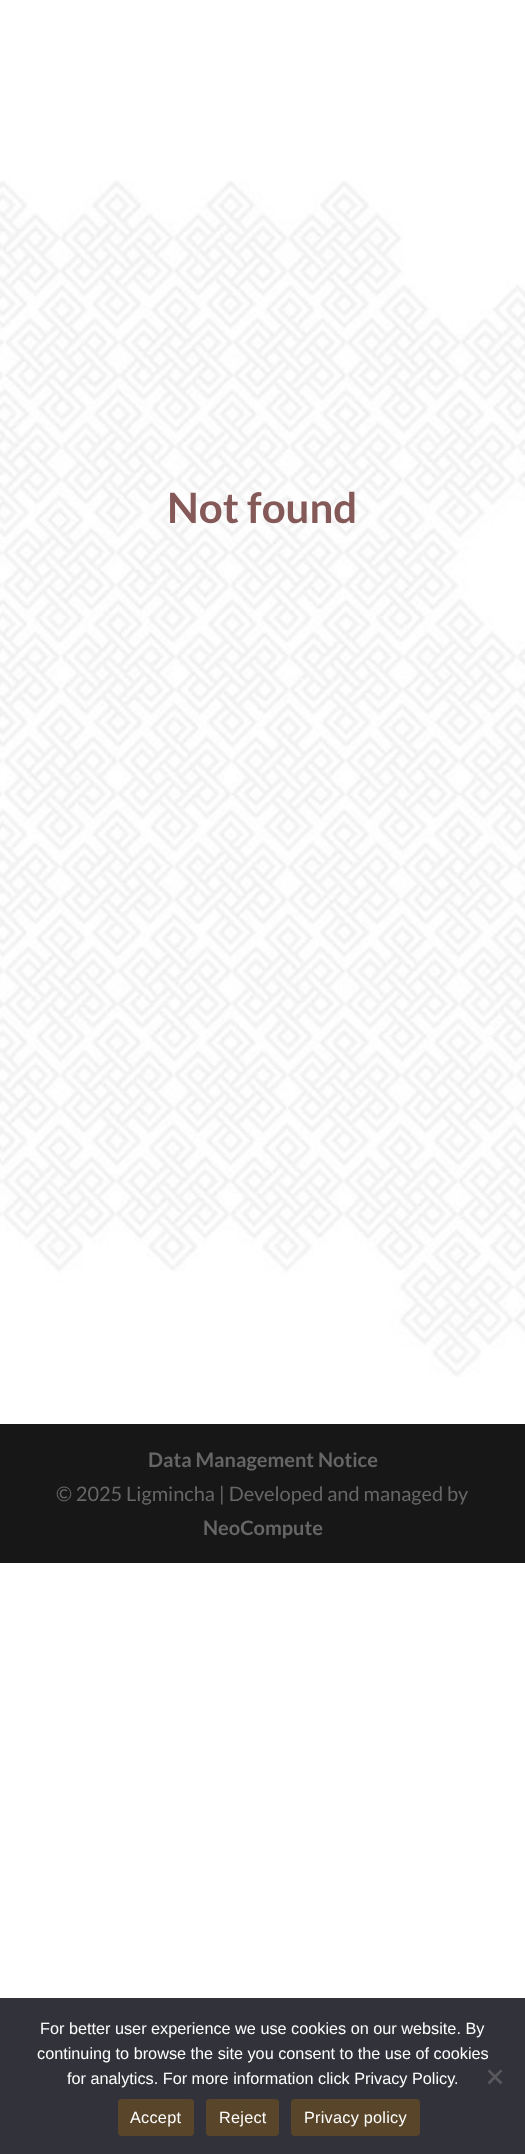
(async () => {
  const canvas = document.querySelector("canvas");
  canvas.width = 525;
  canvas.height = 2154;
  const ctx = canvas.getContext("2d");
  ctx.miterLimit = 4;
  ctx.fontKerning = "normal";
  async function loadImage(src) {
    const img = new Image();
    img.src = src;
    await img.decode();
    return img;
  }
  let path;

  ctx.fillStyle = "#ffffff";
  ctx.fillRect(0, 0, 525, 2154);
  ctx.drawImage(await loadImage("img/1.png"), 0, 180, 525, 1197);
  ctx.fillStyle = "#171717";
  ctx.fillRect(0, 1424, 525, 139);
  ctx.fillStyle = "#32323a";
  ctx.fillRect(0, 1998, 525, 156);
  ctx.fillStyle = "#59595d";
  path = new Path2D("M500.5 2069.5L502.5 2071L489.5 2084.5L487.5 2082.5Z");
  ctx.fill(path);
  path = new Path2D("M487.5 2071L489.5 2069.5L502.5 2082.5L500.5 2084.5Z");
  ctx.fill(path);
  ctx.fillStyle = "#594529";
  ctx.beginPath();
  ctx.roundRect(118, 2099, 76, 37, 4);
  ctx.fill();
  ctx.beginPath();
  ctx.roundRect(206, 2099, 73, 37, 4);
  ctx.fill();
  ctx.beginPath();
  ctx.roundRect(291, 2099, 129, 37, 4);
  ctx.fill();
  ctx.font = "bold 42px Lato";
  ctx.fillStyle = "#865959";
  ctx.fillText("Not found", 167, 523);
  ctx.font = "bold 20px Lato";
  ctx.fillStyle = "#666666";
  ctx.fillText("Data Management Notice", 148, 1467);
  ctx.font = "20px Lato";
  ctx.fillText("© 2025 Ligmincha | Developed and managed by", 56, 1501);
  ctx.font = "bold 20px Lato";
  ctx.fillText("NeoCompute", 203, 1535);
  ctx.font = "16.25px Liberation Sans";
  ctx.fillStyle = "#ffffff";
  for (const [text, x, y] of [
    ["For better user experience we use cookies on our website. By", 40, 2034],
    ["continuing to browse the site you consent to the use of cookies", 37, 2059],
    ["for analytics. For more information click Privacy Policy.", 67, 2084],
  ]) {
    ctx.fillText(text, x, y);
  }
  ctx.letterSpacing = "0.25px";
  for (const [text, x, y] of [
    ["Accept", 130, 2123],
    ["Reject", 219, 2123],
    ["Privacy policy", 304, 2123],
  ]) {
    ctx.fillText(text, x, y);
  }
})();
